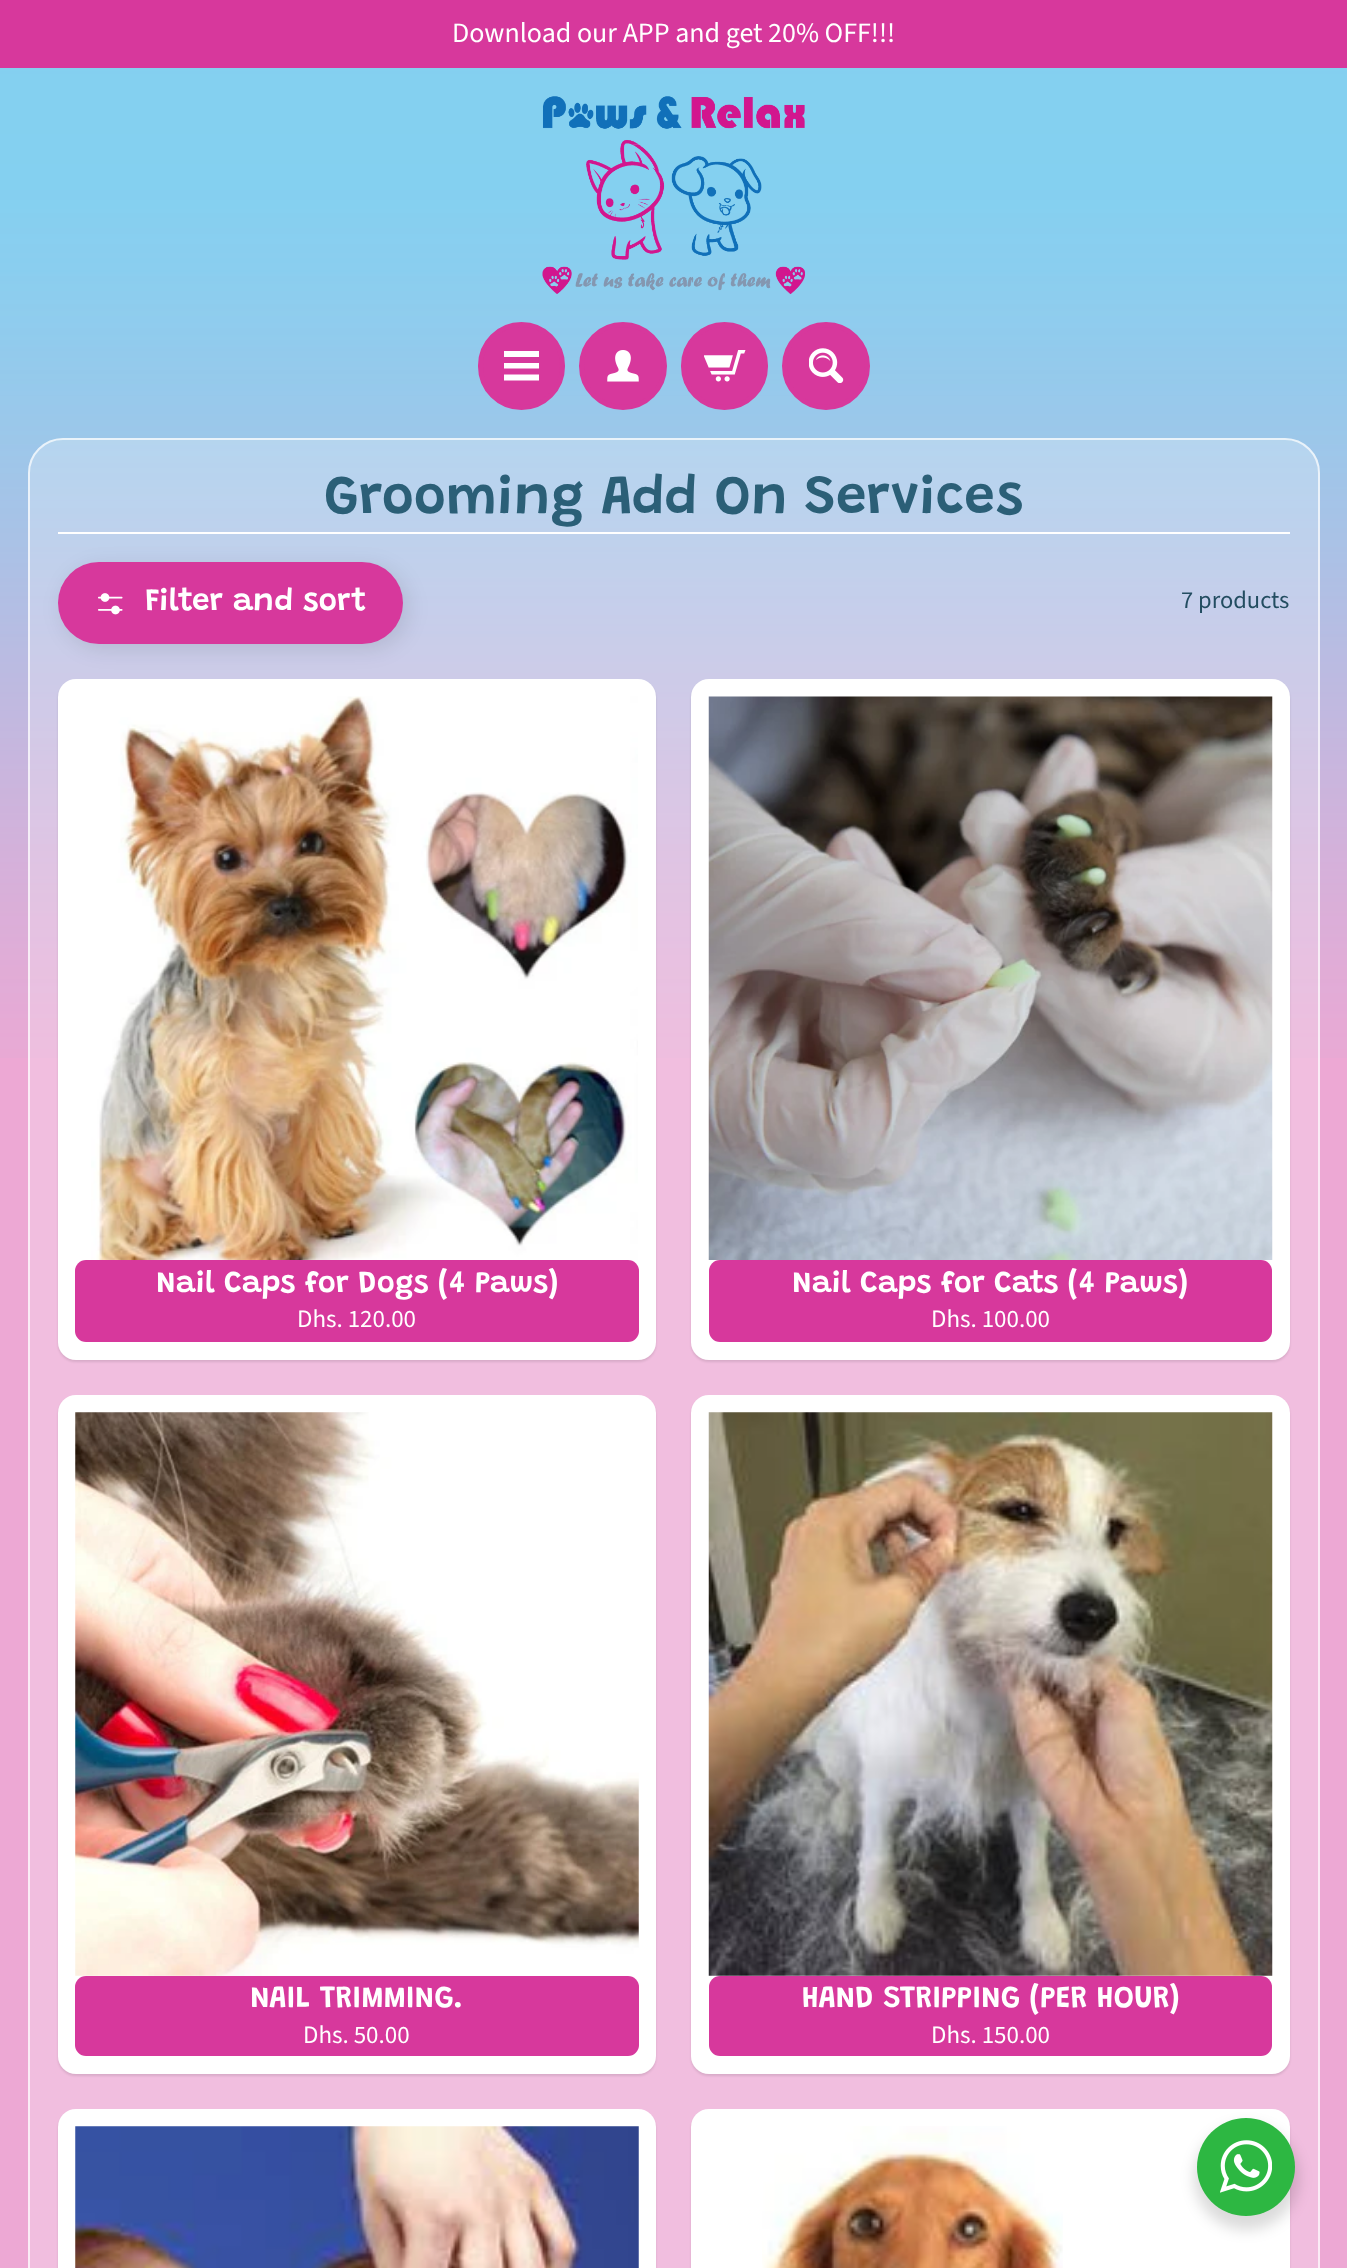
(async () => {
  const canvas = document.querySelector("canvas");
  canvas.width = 1347;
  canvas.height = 2268;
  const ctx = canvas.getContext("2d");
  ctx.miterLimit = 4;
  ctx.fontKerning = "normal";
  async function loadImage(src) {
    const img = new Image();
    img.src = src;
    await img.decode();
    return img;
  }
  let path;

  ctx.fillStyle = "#eda8d4";
  ctx.fillRect(0, 0, 1347, 2268);
  ctx.drawImage(await loadImage("img/1.png"), 0, 68, 1347, 990);
  ctx.fillStyle = "#d7389c";
  ctx.fillRect(0, 0, 1347, 68);
  ctx.drawImage(await loadImage("img/2.png"), 542, 96, 263, 198);
  ctx.beginPath();
  ctx.roundRect(480.5, 324.5, 82, 83, 41);
  ctx.fill();
  ctx.strokeStyle = "#d7389c";
  ctx.lineWidth = 5;
  ctx.stroke();
  ctx.fillStyle = "#ffffff";
  path = new Path2D("M539 357H504V351H539ZM539 363H504V368.5H539ZM539 374.5H504V380.5H539Z");
  ctx.fill(path);
  ctx.fillStyle = "#d7389c";
  ctx.beginPath();
  ctx.arc(623, 366, 41.5, 0, Math.PI * 2);
  ctx.fill();
  ctx.stroke();
  ctx.drawImage(await loadImage("img/3.png"), 607, 350, 32, 32);
  ctx.beginPath();
  ctx.roundRect(683.5, 324.5, 82, 83, 41);
  ctx.fill();
  ctx.stroke();
  ctx.drawImage(await loadImage("img/4.png"), 704, 350, 42, 32);
  ctx.beginPath();
  ctx.arc(826, 366, 41.5, 0, Math.PI * 2);
  ctx.fill();
  ctx.stroke();
  ctx.drawImage(await loadImage("img/5.png"), 809, 348, 35, 35);
  ctx.fillStyle = "rgba(255, 255, 255, 0.25)";
  ctx.beginPath();
  ctx.roundRect(28, 438, 1292, 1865, 35);
  ctx.fill();
  ctx.beginPath();
  ctx.roundRect(29, 439, 1290, 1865, 34);
  ctx.strokeStyle = "rgba(255, 255, 255, 0.7)";
  ctx.lineWidth = 2;
  ctx.stroke();
  ctx.fillStyle = "#ffffff";
  ctx.fillRect(58, 532, 1232, 2);
  ctx.fillStyle = "rgba(0, 0, 0, 0.1)";
  ctx.filter = "blur(10.5px)";
  ctx.beginPath();
  ctx.roundRect(63, 567, 345, 82, 41);
  ctx.fill();
  ctx.filter = "none";
  ctx.fillStyle = "#d7389c";
  ctx.beginPath();
  ctx.roundRect(58, 562, 345, 82, 41);
  ctx.fill();
  ctx.drawImage(await loadImage("img/6.png"), 98, 593, 25, 22);
  ctx.fillStyle = "rgba(0, 0, 0, 0.1)";
  ctx.filter = "blur(1px)";
  ctx.beginPath();
  ctx.roundRect(58, 681, 598, 681, 18);
  ctx.fill();
  ctx.filter = "none";
  ctx.fillStyle = "#ffffff";
  ctx.beginPath();
  ctx.roundRect(58, 679, 598, 681, 18);
  ctx.fill();
  ctx.drawImage(await loadImage("img/7.png"), 91, 696, 547, 564);
  ctx.fillStyle = "#d7389c";
  ctx.beginPath();
  ctx.roundRect(75, 1260, 564, 82, 11);
  ctx.fill();
  ctx.fillStyle = "rgba(0, 0, 0, 0.1)";
  ctx.filter = "blur(1px)";
  ctx.beginPath();
  ctx.roundRect(691, 681, 599, 681, 18);
  ctx.fill();
  ctx.filter = "none";
  ctx.fillStyle = "#ffffff";
  ctx.beginPath();
  ctx.roundRect(691, 679, 599, 681, 18);
  ctx.fill();
  ctx.drawImage(await loadImage("img/8.png"), 708, 696, 565, 564);
  ctx.fillStyle = "#d7389c";
  ctx.beginPath();
  ctx.roundRect(709, 1260, 563, 82, 11);
  ctx.fill();
  ctx.fillStyle = "rgba(0, 0, 0, 0.1)";
  ctx.filter = "blur(1px)";
  ctx.beginPath();
  ctx.roundRect(58, 1397, 598, 679, 18);
  ctx.fill();
  ctx.filter = "none";
  ctx.fillStyle = "#ffffff";
  ctx.beginPath();
  ctx.roundRect(58, 1395, 598, 679, 18);
  ctx.fill();
  ctx.drawImage(await loadImage("img/9.png"), 75, 1412, 564, 564);
  ctx.fillStyle = "#d7389c";
  ctx.beginPath();
  ctx.roundRect(75, 1976, 564, 80, 11);
  ctx.fill();
  ctx.fillStyle = "rgba(0, 0, 0, 0.1)";
  ctx.filter = "blur(1px)";
  ctx.beginPath();
  ctx.roundRect(691, 1397, 599, 679, 18);
  ctx.fill();
  ctx.filter = "none";
  ctx.fillStyle = "#ffffff";
  ctx.beginPath();
  ctx.roundRect(691, 1395, 599, 679, 18);
  ctx.fill();
  ctx.drawImage(await loadImage("img/10.png"), 708, 1412, 565, 564);
  ctx.fillStyle = "#d7389c";
  ctx.beginPath();
  ctx.roundRect(709, 1976, 563, 80, 11);
  ctx.fill();
  ctx.fillStyle = "rgba(0, 0, 0, 0.1)";
  ctx.filter = "blur(1px)";
  ctx.beginPath();
  ctx.roundRect(58, 2111, 598, 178, 18);
  ctx.fill();
  ctx.filter = "none";
  ctx.fillStyle = "#ffffff";
  ctx.beginPath();
  ctx.roundRect(58, 2109, 598, 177, 18);
  ctx.fill();
  ctx.drawImage(await loadImage("img/11.png"), 75, 2126, 564, 142);
  ctx.fillStyle = "rgba(0, 0, 0, 0.1)";
  ctx.filter = "blur(1px)";
  ctx.beginPath();
  ctx.roundRect(691, 2111, 599, 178, 18);
  ctx.fill();
  ctx.filter = "none";
  ctx.fillStyle = "#ffffff";
  ctx.beginPath();
  ctx.roundRect(691, 2109, 599, 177, 18);
  ctx.fill();
  ctx.drawImage(await loadImage("img/12.png"), 762, 2126, 301, 142);
  ctx.fillStyle = "rgba(0, 0, 0, 0.14)";
  ctx.filter = "blur(7px)";
  ctx.beginPath();
  ctx.roundRect(1194, 2125, 105, 105, 52.5);
  ctx.fill();
  ctx.filter = "none";
  ctx.fillStyle = "#2db742";
  ctx.beginPath();
  ctx.arc(1246, 2167, 49, 0, Math.PI * 2);
  ctx.fill();
  ctx.drawImage(await loadImage("img/13.png"), 1220, 2140, 52, 53);
  ctx.font = "28px Source Sans Pro";
  ctx.fillStyle = "#ffffff";
  ctx.fillText("Download our APP and get 20% OFF!!!", 452, 42);
  ctx.font = "600 54.75px Grandstander";
  ctx.fillStyle = "#2b5f77";
  ctx.fillText("Grooming Add On Services", 324, 513);
  ctx.font = "600 31.5px Grandstander";
  ctx.fillStyle = "#ffffff";
  ctx.fillText("Filter and sort", 145, 610);
  ctx.font = "24.5px Source Sans Pro";
  ctx.fillStyle = "#234d61";
  ctx.fillText("7 products", 1181, 608);
  ctx.font = "600 30.75px Grandstander";
  ctx.fillStyle = "#ffffff";
  ctx.fillText("Nail Caps for Dogs (4 Paws)", 156, 1292);
  ctx.font = "25px Source Sans Pro";
  ctx.fillText("Dhs. 120.00", 297, 1327);
  ctx.font = "600 30.75px Grandstander";
  ctx.fillText("Nail Caps for Cats (4 Paws)", 792, 1292);
  ctx.font = "25px Source Sans Pro";
  ctx.fillText("Dhs. 100.00", 931, 1327);
  ctx.font = "600 30.75px Grandstander";
  ctx.fillText("NAIL TRIMMING.", 250, 2007);
  ctx.font = "25px Source Sans Pro";
  ctx.fillText("Dhs. 50.00", 303, 2043);
  ctx.font = "600 30.75px Grandstander";
  ctx.fillText("HAND STRIPPING (PER HOUR)", 802, 2007);
  ctx.font = "25px Source Sans Pro";
  ctx.fillText("Dhs. 150.00", 931, 2043);
})();
